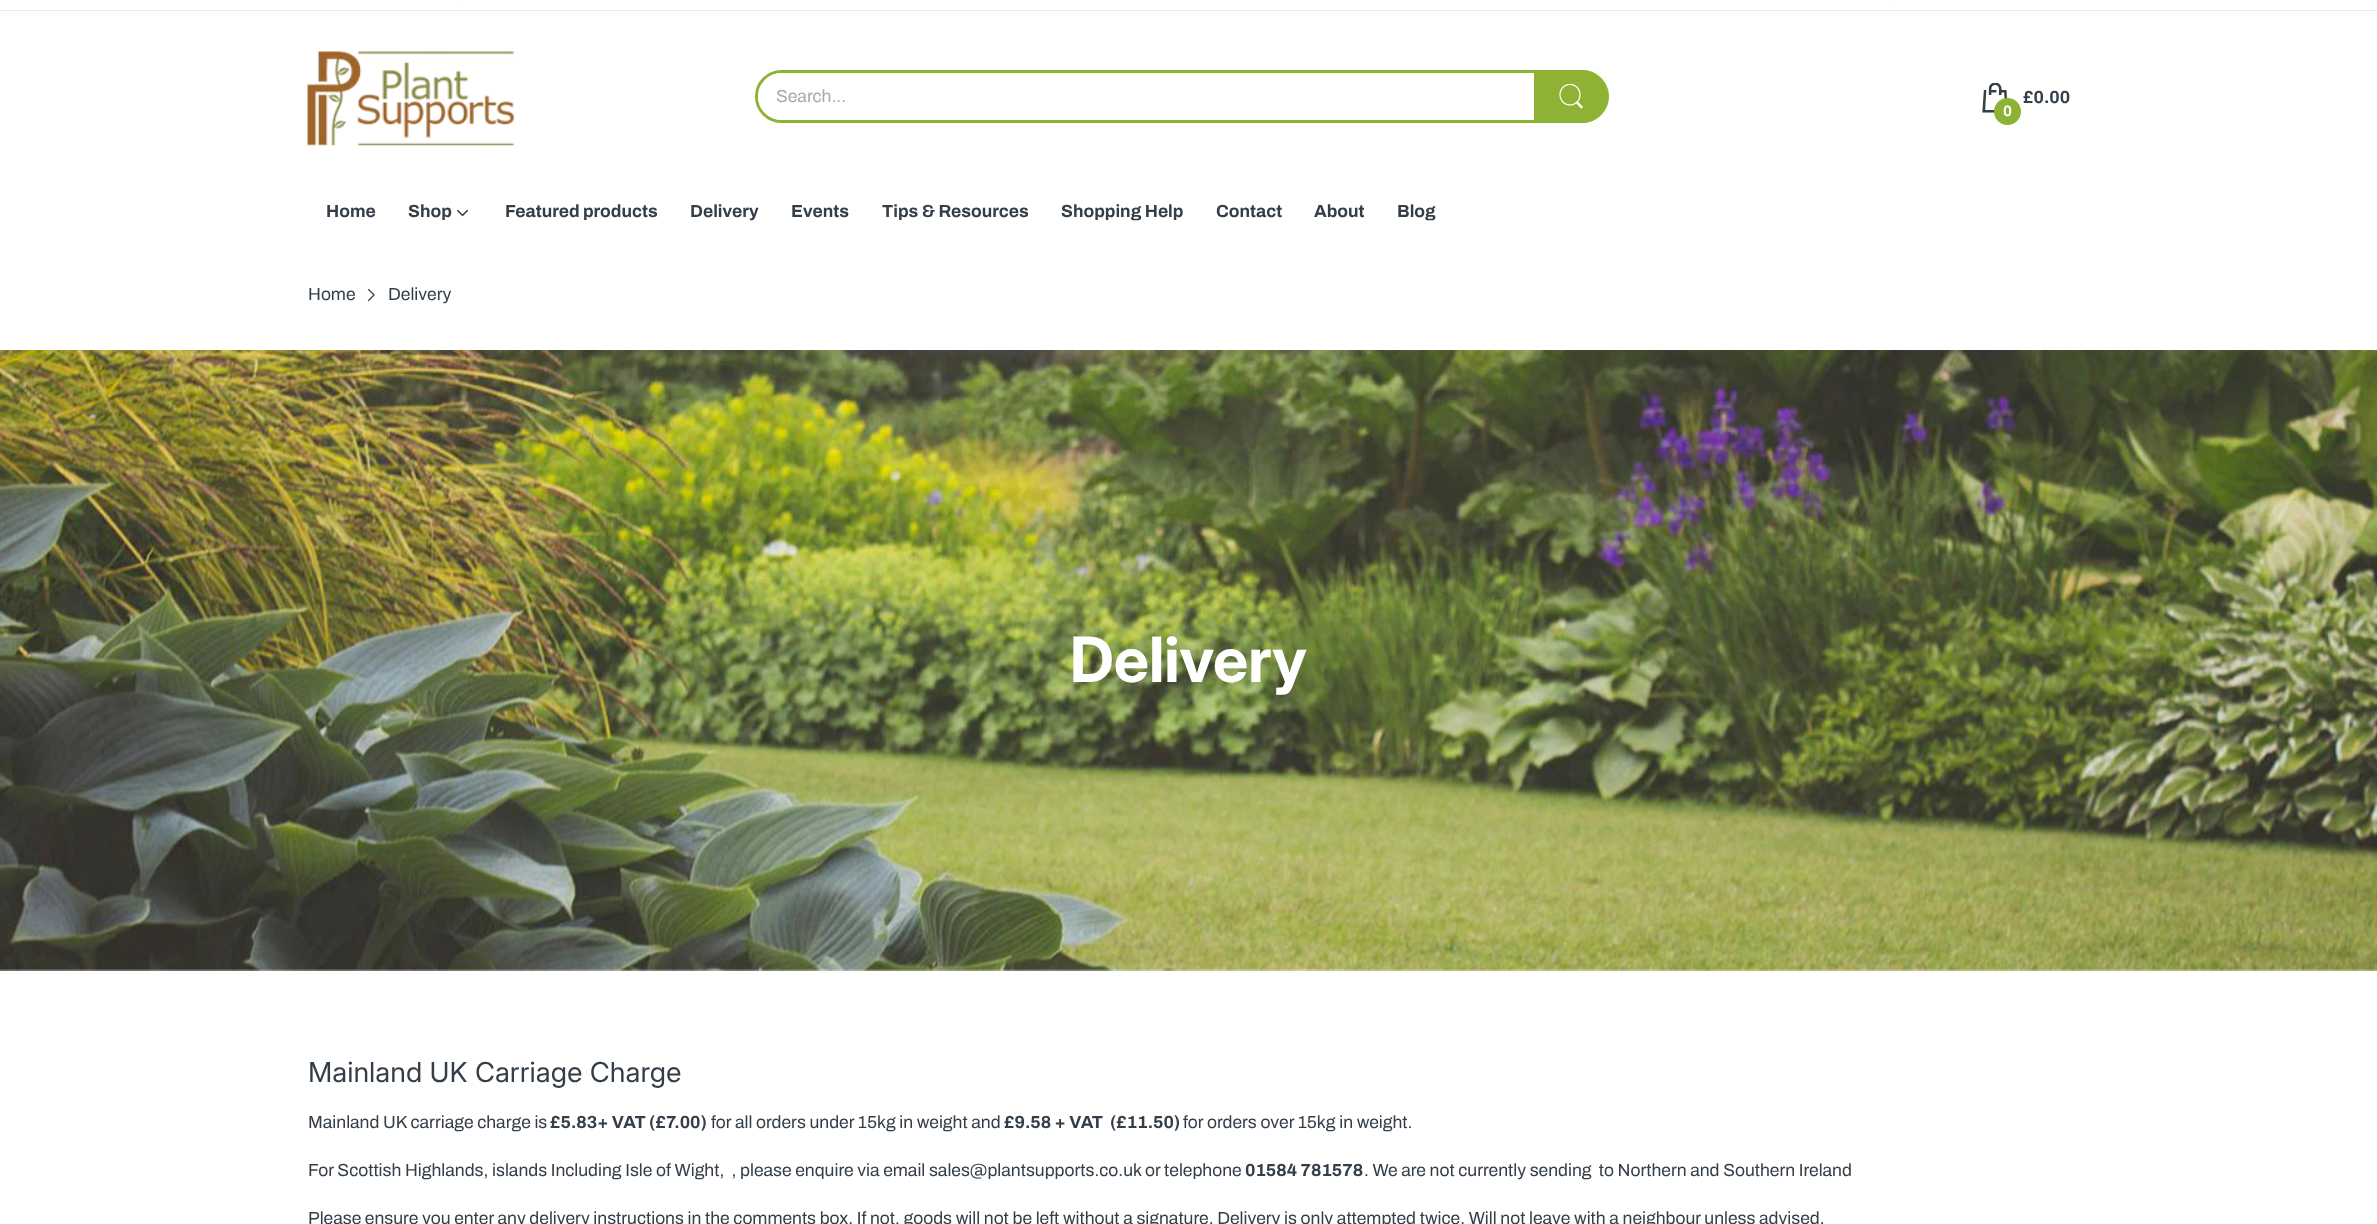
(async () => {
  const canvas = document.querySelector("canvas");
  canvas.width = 2377;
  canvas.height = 1224;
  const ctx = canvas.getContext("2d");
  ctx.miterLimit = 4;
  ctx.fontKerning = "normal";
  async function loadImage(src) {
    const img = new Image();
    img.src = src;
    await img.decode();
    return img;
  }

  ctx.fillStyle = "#ffffff";
  ctx.fillRect(0, 0, 2377, 1224);
  for (const [x, y, w, h, color] of [
    [0, 10, 2377, 1, "#ebeced"],
    [456, 0, 1, 1, "#ebeced"],
    [1895, 0, 1, 1, "#ebeced"],
  ]) {
    ctx.fillStyle = color;
    ctx.fillRect(x, y, w, h);
  }
  ctx.drawImage(await loadImage("img/1.png"), 307, 51, 207, 95);
  ctx.beginPath();
  ctx.roundRect(756.5, 71.5, 850, 50, 25);
  ctx.strokeStyle = "#8eb234";
  ctx.lineWidth = 3;
  ctx.stroke();
  ctx.fillStyle = "#ffffff";
  ctx.beginPath();
  ctx.roundRect(758, 73, 847, 47, 23.5);
  ctx.fill();
  ctx.fillStyle = "#8eb234";
  ctx.beginPath();
  ctx.roundRect(1534.5, 70.5, 74, 52, [0, 26, 26, 0]);
  ctx.fill();
  ctx.lineWidth = 1;
  ctx.stroke();
  ctx.drawImage(await loadImage("img/2.png"), 1559, 84, 24, 25);
  ctx.drawImage(await loadImage("img/3.png"), 1982, 83, 25, 30);
  ctx.beginPath();
  ctx.arc(2007.5, 111.5, 13.5, 0, Math.PI * 2);
  ctx.fill();
  ctx.drawImage(await loadImage("img/4.png"), 457, 209, 11, 8);
  ctx.drawImage(await loadImage("img/5.png"), 367, 289, 8, 12);
  ctx.drawImage(await loadImage("img/6.png"), 0, 350, 2377, 621);
  ctx.font = "17.5px Archivo";
  ctx.fillStyle = "#a9a9a9";
  ctx.fillText("Search...", 776, 102);
  ctx.font = "bold 17.5px Archivo";
  ctx.fillStyle = "#333e48";
  ctx.fillText("£0.00", 2023, 103);
  ctx.font = "bold 15px Archivo";
  ctx.fillStyle = "#ffffff";
  ctx.fillText("0", 2003, 116);
  ctx.font = "bold 17.5px Archivo";
  ctx.fillStyle = "#333e48";
  for (const [text, x, y] of [
    ["Home", 326, 217],
    ["Shop", 408, 217],
    ["Featured products", 505, 217],
    ["Delivery", 690, 217],
    ["Events", 791, 217],
    ["Tips & Resources", 882, 217],
    ["Shopping Help", 1061, 217],
    ["Contact", 1216, 217],
    ["About", 1314, 217],
    ["Blog", 1397, 217],
  ]) {
    ctx.fillText(text, x, y);
  }
  ctx.font = "17.5px Archivo";
  ctx.fillText("Home", 308, 300);
  ctx.fillText("Delivery", 388, 300);
  ctx.font = "bold 62.5px Inter";
  ctx.fillStyle = "#ffffff";
  ctx.fillText("Delivery", 1070, 682);
  ctx.font = "27.5px Inter";
  ctx.fillStyle = "#333e48";
  ctx.fillText("Mainland UK Carriage Charge", 308, 1082);
  ctx.font = "17.5px Archivo";
  ctx.fillText("Mainland UK carriage charge is", 308, 1128);
  ctx.font = "bold 17.5px Archivo";
  ctx.fillText("£5.83+ VAT (£7.00)", 550, 1128);
  ctx.font = "17.5px Archivo";
  ctx.fillText("for all orders under 15kg in weight and", 711, 1128);
  ctx.font = "bold 17.5px Archivo";
  ctx.fillText("£9.58 + VAT  (£11.50)", 1004, 1128);
  ctx.font = "17.5px Archivo";
  ctx.fillText("for orders over 15kg in weight.", 1183, 1128);
  ctx.fillText("For Scottish Highlands, islands Including Isle of Wight,  , please enquire via email sales@plantsupports.co.uk or telephone", 308, 1176);
  ctx.font = "bold 17.5px Archivo";
  ctx.fillText("01584 781578", 1245, 1176);
  ctx.font = "17.5px Archivo";
  ctx.fillText(". We are not currently sending  to Northern and Southern Ireland", 1364, 1176);
  ctx.fillText("Please ensure you enter any delivery instructions in the comments box. If not, goods will not be left without a signature. Delivery is only attempted twice. Will not leave with a neighbour unless advised.", 308, 1224);
})();
